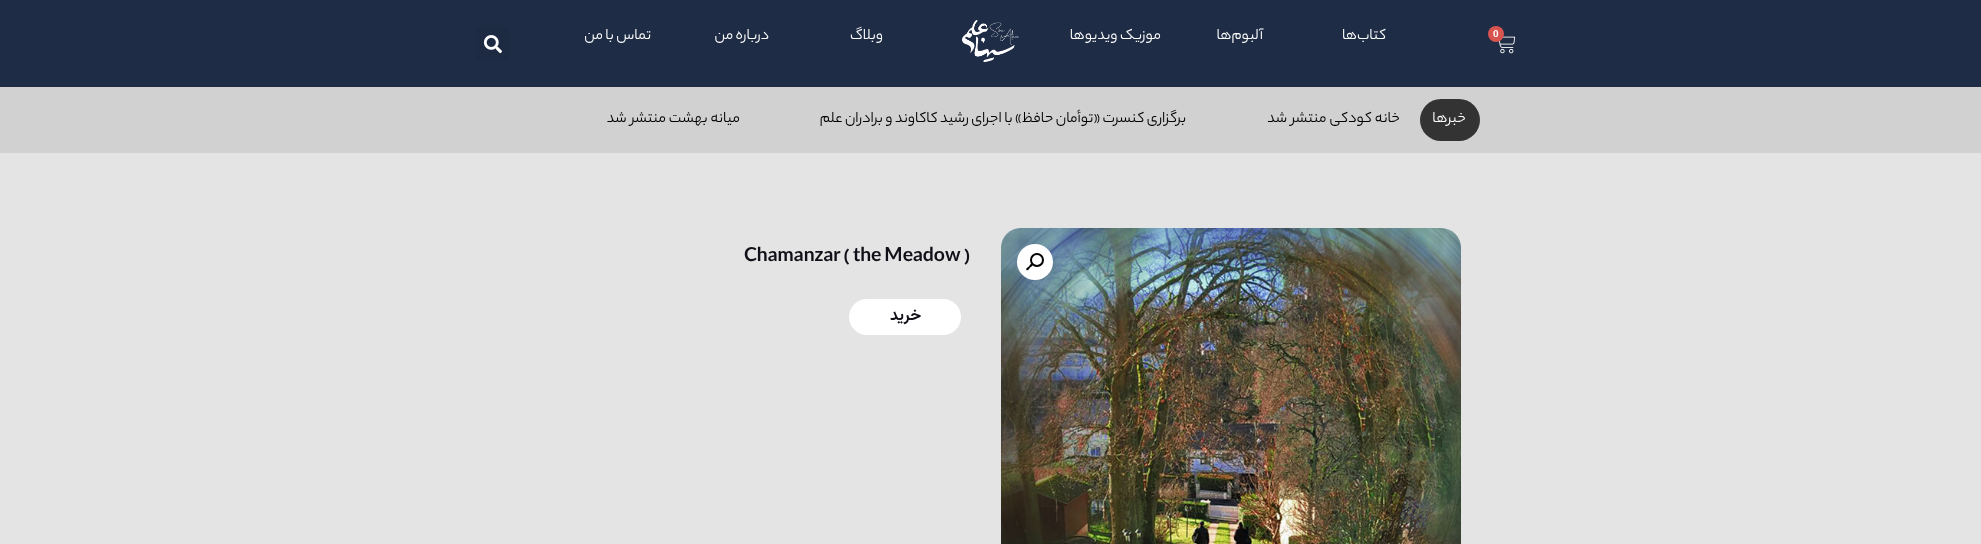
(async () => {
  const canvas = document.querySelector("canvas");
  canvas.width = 1981;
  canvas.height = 544;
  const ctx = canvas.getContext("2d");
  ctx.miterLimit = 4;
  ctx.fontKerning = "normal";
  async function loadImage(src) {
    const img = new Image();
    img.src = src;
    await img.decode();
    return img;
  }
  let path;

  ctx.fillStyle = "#e4e4e4";
  ctx.fillRect(0, 0, 1981, 544);
  ctx.fillStyle = "#1f2c45";
  ctx.fillRect(0, 0, 1981, 87);
  ctx.drawImage(await loadImage("img/1.png"), 1499, 36, 17, 18);
  ctx.fillStyle = "#d9534f";
  ctx.beginPath();
  ctx.arc(1496, 34, 8, 0, Math.PI * 2);
  ctx.fill();
  ctx.drawImage(await loadImage("img/2.png"), 962, 20, 57, 42);
  ctx.fillStyle = "#1d2a42";
  ctx.beginPath();
  ctx.roundRect(476, 27, 33, 33, 3);
  ctx.fill();
  ctx.drawImage(await loadImage("img/3.png"), 483, 35, 19, 19);
  ctx.fillStyle = "#d1d1d1";
  ctx.fillRect(0, 87, 1981, 66);
  ctx.fillStyle = "#333333";
  ctx.beginPath();
  ctx.roundRect(1420, 99, 60, 42, 21);
  ctx.fill();
  ctx.drawImage(await loadImage("img/4.png"), 1001, 228, 460, 316);
  ctx.fillStyle = "#ffffff";
  ctx.beginPath();
  ctx.arc(1035, 262, 18, 0, Math.PI * 2);
  ctx.fill();
  ctx.beginPath();
  ctx.arc(1037, 260, 6, 0, Math.PI * 2);
  ctx.strokeStyle = "#000000";
  ctx.lineWidth = 2;
  ctx.stroke();
  ctx.fillStyle = "#000000";
  path = new Path2D("M1032.5 264C1033.5 265.5 1031 267 1030 267.5C1029.5 268.5 1028 271 1026.5 270C1025.5 268.5 1028 267 1029 266.5C1029.5 265.5 1031 263 1032.5 264Z");
  ctx.fill(path);
  ctx.fillStyle = "#ffffff";
  ctx.beginPath();
  ctx.roundRect(849, 299, 112, 36, 18);
  ctx.fill();
  ctx.font = "bold 10px Liberation Sans";
  ctx.fillText("0", 1493, 37);
  ctx.direction = "rtl";
  ctx.font = "16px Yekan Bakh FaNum";
  for (const [text, x, y] of [
    ["کتاب", 1386, 39],
    ["‌ها", 1357, 39],
    ["آلبوم‌ها", 1263, 39],
    ["موزیک ویدیو‌ها", 1161, 39],
    ["وبلاگ", 883, 39],
    ["درباره من", 769, 39],
    ["تماس با من", 651, 39],
    ["خبر‌ها", 1466, 122],
  ]) {
    ctx.fillText(text, x, y);
  }
  ctx.wordSpacing = "0.5px";
  ctx.fillStyle = "#000000";
  ctx.fillText("خانه کودکی منتشر شد", 1400, 122);
  ctx.wordSpacing = "0px";
  ctx.fillText("برگزاری کنسرت «توأمان حافظ» با اجرای رشید کاکاوند و برادران علم", 1186, 122);
  ctx.wordSpacing = "0.5px";
  ctx.fillText("میانه بهشت منتشر شد", 740, 122);
  ctx.wordSpacing = "0px";
  ctx.direction = "ltr";
  ctx.font = "bold 21px Yekan Bakh FaNum";
  ctx.fillStyle = "#101018";
  ctx.fillText("Chamanzar ( the Meadow )", 744, 261);
  ctx.direction = "rtl";
  ctx.font = "bold 16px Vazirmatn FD";
  ctx.fillText("خرید", 921, 320);
})();
